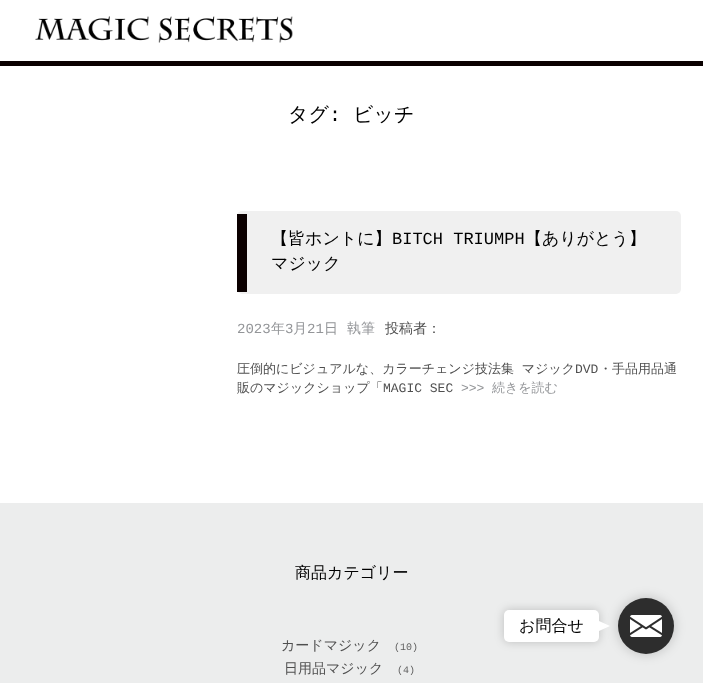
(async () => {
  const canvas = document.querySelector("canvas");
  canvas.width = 703;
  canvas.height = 683;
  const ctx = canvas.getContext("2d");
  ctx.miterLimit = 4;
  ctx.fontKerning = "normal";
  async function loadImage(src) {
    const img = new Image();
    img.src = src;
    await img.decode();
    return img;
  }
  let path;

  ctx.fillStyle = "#ffffff";
  ctx.fillRect(0, 0, 703, 683);
  ctx.fillStyle = "#0a0000";
  ctx.fillRect(0, 61, 703, 5);
  ctx.drawImage(await loadImage("img/1.png"), 35, 16, 258, 27);
  ctx.fillStyle = "#f0f0f0";
  ctx.beginPath();
  ctx.roundRect(237, 211, 444, 83, 5);
  ctx.fill();
  ctx.fillStyle = "#0a0000";
  ctx.fillRect(237, 214, 10, 78);
  ctx.fillStyle = "#eceded";
  ctx.fillRect(0, 503, 703, 180);
  ctx.fillStyle = "rgba(0, 0, 0, 0.2)";
  ctx.filter = "blur(5px)";
  ctx.beginPath();
  ctx.roundRect(504, 610, 95, 32, 5);
  ctx.fill();
  ctx.filter = "none";
  ctx.fillStyle = "#ffffff";
  ctx.beginPath();
  ctx.roundRect(504, 610, 95, 32, 5);
  ctx.fill();
  ctx.fillStyle = "rgba(0, 0, 0, 0.2)";
  ctx.filter = "blur(6px)";
  ctx.beginPath();
  ctx.roundRect(618, 598, 56, 56, 28);
  ctx.fill();
  ctx.filter = "none";
  ctx.fillStyle = "#ffffff";
  path = new Path2D("M599 631V621L610 626Z");
  ctx.fill(path);
  ctx.fillStyle = "#2d2d2d";
  ctx.beginPath();
  ctx.arc(646, 626, 28, 0, Math.PI * 2);
  ctx.fill();
  ctx.drawImage(await loadImage("img/2.png"), 630, 615, 32, 22);
  ctx.font = "500 20px WenQuanYi Zen Hei";
  ctx.fillStyle = "#000000";
  ctx.fillText("タグ", 288, 121);
  ctx.font = "20px Liberation Mono";
  ctx.fillText(":", 329, 121);
  ctx.font = "500 20px WenQuanYi Zen Hei";
  ctx.fillText("ビッチ", 353, 121);
  ctx.font = "500 17px WenQuanYi Zen Hei";
  ctx.fillText("【皆ホントに】", 271, 244);
  ctx.font = "17px Liberation Mono";
  ctx.fillText("BITCH TRIUMPH", 392, 244);
  ctx.font = "500 17px WenQuanYi Zen Hei";
  ctx.fillText("【ありがとう】", 525, 244);
  ctx.fillText("マジック", 271, 269);
  ctx.font = "14px Liberation Mono";
  ctx.fillStyle = "#939598";
  ctx.fillText("2023", 237, 333);
  ctx.font = "500 14px WenQuanYi Zen Hei";
  ctx.fillText("年", 271, 333);
  ctx.font = "14px Liberation Mono";
  ctx.fillText("3", 285, 333);
  ctx.font = "500 14px WenQuanYi Zen Hei";
  ctx.fillText("月", 293, 333);
  ctx.font = "14px Liberation Mono";
  ctx.fillText("21", 307, 333);
  ctx.font = "500 14px WenQuanYi Zen Hei";
  ctx.fillText("日", 324, 333);
  ctx.fillText("執筆", 347, 333);
  ctx.fillStyle = "#4f4f4f";
  ctx.fillText("投稿者：", 385, 333);
  ctx.wordSpacing = "4px";
  ctx.font = "500 13px WenQuanYi Zen Hei";
  ctx.fillText("圧倒的にビジュアルな、カラーチェンジ技法集 マジック", 237, 373);
  ctx.wordSpacing = "0px";
  ctx.font = "13px Liberation Mono";
  ctx.fillText("DVD", 575, 373);
  ctx.font = "500 13px WenQuanYi Zen Hei";
  ctx.fillText("・手品用品通", 599, 373);
  ctx.fillText("販のマジックショップ「", 237, 392);
  ctx.font = "13px Liberation Mono";
  ctx.fillText("MAGIC SEC", 383, 392);
  ctx.fillStyle = "#939598";
  ctx.fillText(">>>", 461, 392);
  ctx.font = "500 13px WenQuanYi Zen Hei";
  ctx.fillText("続きを読む", 492, 392);
  ctx.font = "500 16px WenQuanYi Zen Hei";
  ctx.fillStyle = "#000000";
  ctx.fillText("商品カテゴリー", 295, 578);
  ctx.font = "500 14px WenQuanYi Zen Hei";
  ctx.fillStyle = "#4f4f4f";
  ctx.fillText("カードマジック", 281, 650);
  ctx.font = "10px Liberation Mono";
  ctx.fillStyle = "#5f5f5f";
  ctx.fillText("(10)", 394, 650);
  ctx.font = "500 14px WenQuanYi Zen Hei";
  ctx.fillStyle = "#4f4f4f";
  ctx.fillText("日用品マジック", 284, 673);
  ctx.font = "10px Liberation Mono";
  ctx.fillStyle = "#5f5f5f";
  ctx.fillText("(4)", 397, 673);
  ctx.font = "500 16px WenQuanYi Zen Hei";
  ctx.fillStyle = "#000000";
  ctx.fillText("お問合せ", 519, 631);
})();
